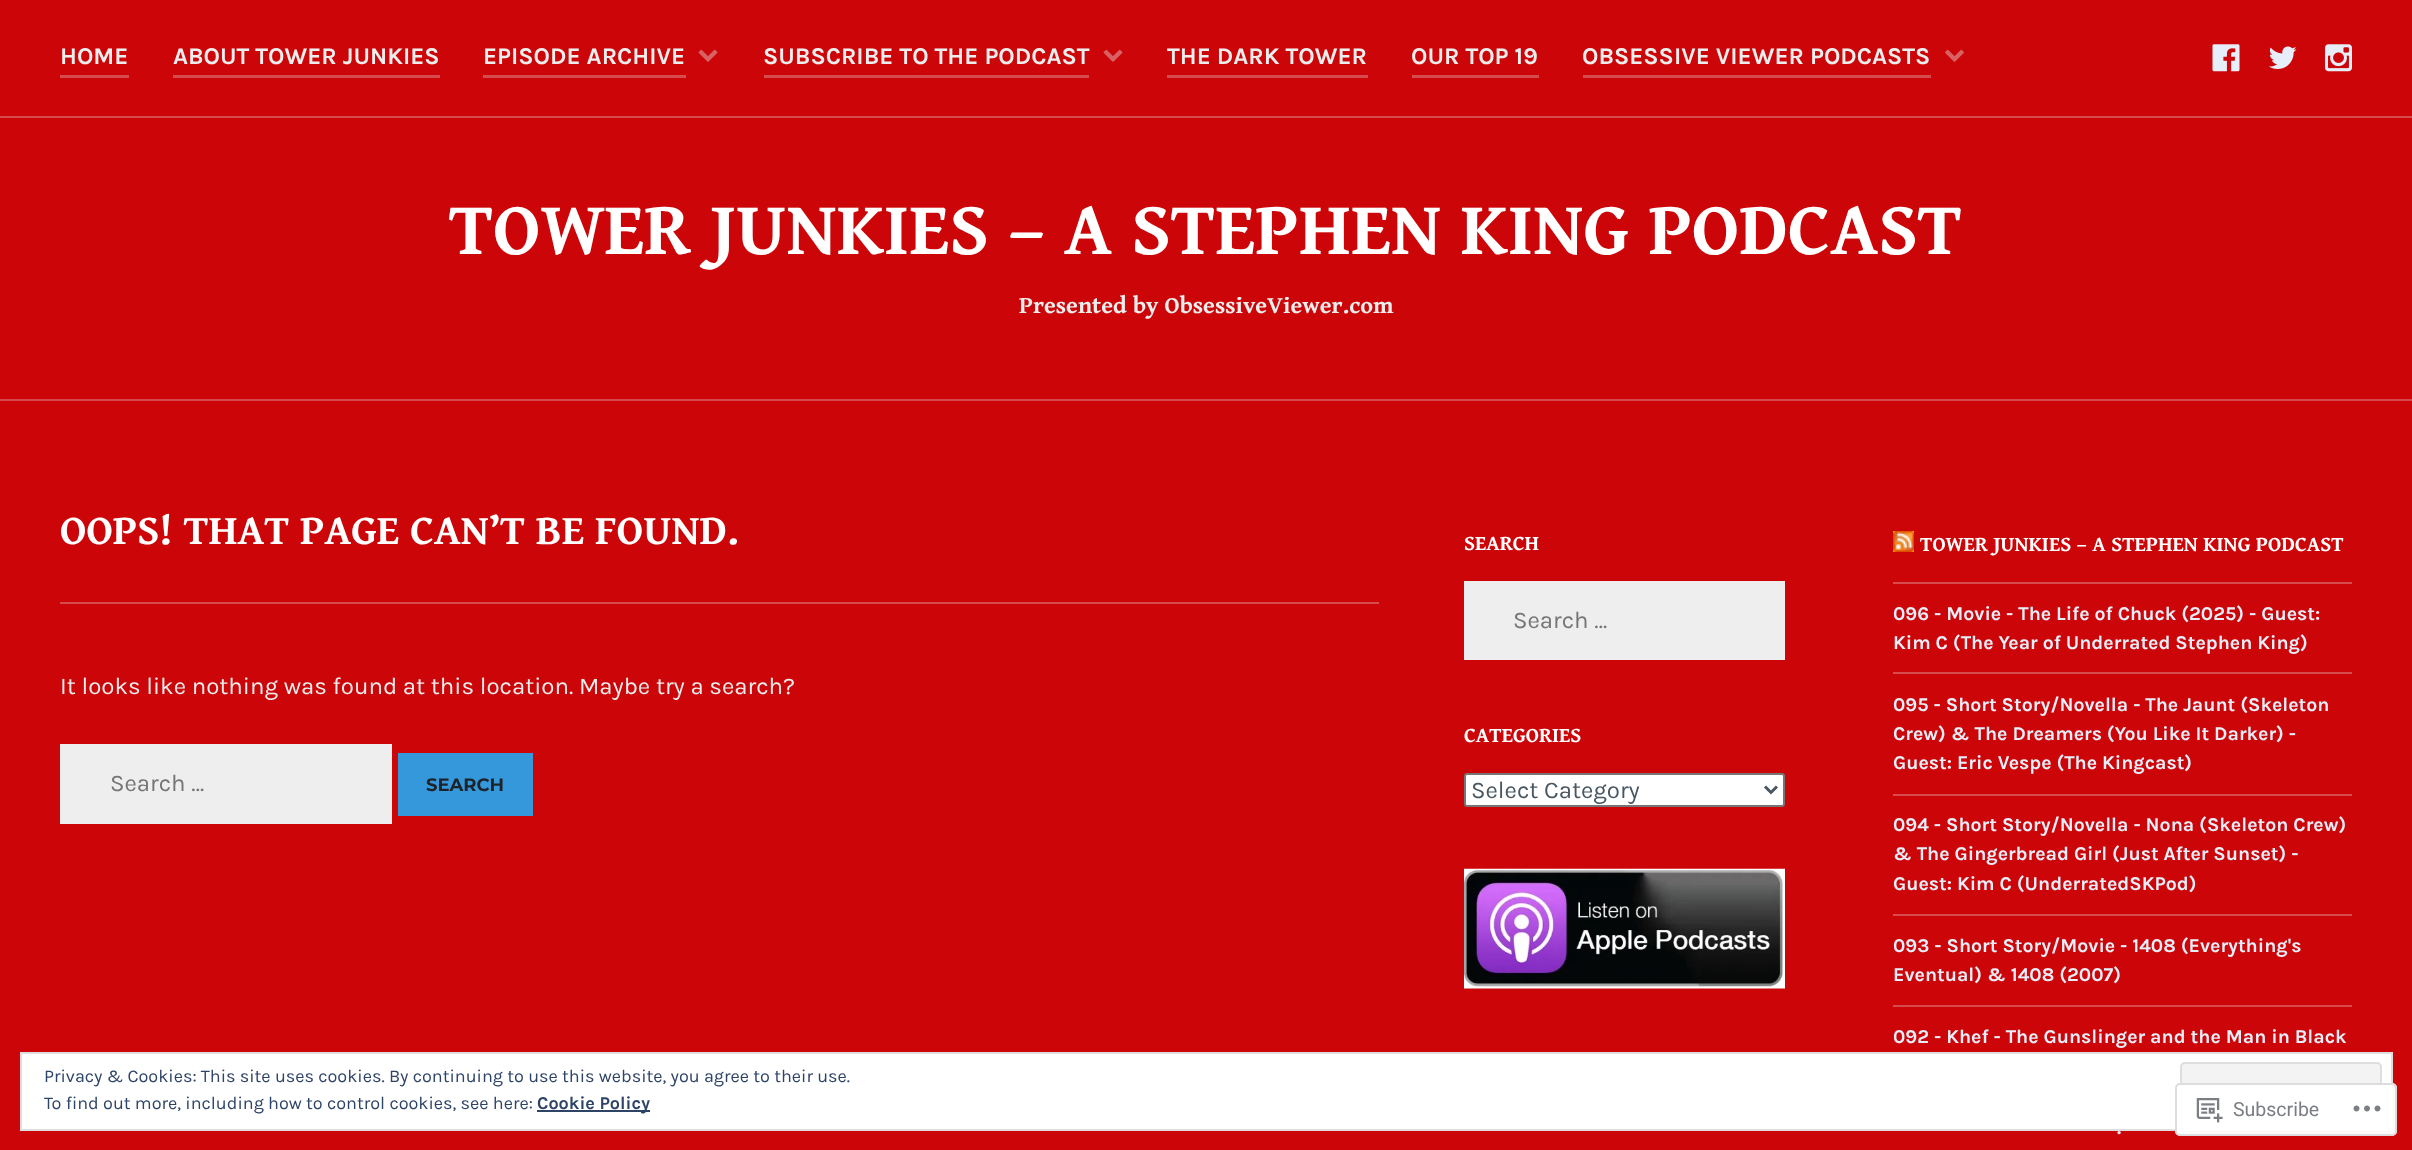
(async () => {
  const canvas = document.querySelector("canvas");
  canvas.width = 2412;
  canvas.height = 1150;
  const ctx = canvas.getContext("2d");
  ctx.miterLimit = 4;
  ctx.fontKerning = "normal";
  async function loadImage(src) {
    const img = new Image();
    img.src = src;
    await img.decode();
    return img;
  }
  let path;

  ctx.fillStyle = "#cb0508";
  ctx.fillRect(0, 0, 2412, 1150);
  for (const [x, y, w, h, color] of [
    [0, 116, 2412, 2, "#d64b4d"],
    [60, 75, 69, 3, "#d64b4d"],
    [173, 75, 267, 3, "#d64b4d"],
    [483, 75, 203, 3, "#d64b4d"],
  ]) {
    ctx.fillStyle = color;
    ctx.fillRect(x, y, w, h);
  }
  ctx.drawImage(await loadImage("img/1.png"), 698, 49, 20, 13);
  ctx.fillRect(764, 75, 325, 3);
  ctx.drawImage(await loadImage("img/1.png"), 1103, 49, 20, 13);
  for (const [x, y, w, h, color] of [
    [1167, 75, 201, 3, "#d64b4d"],
    [1412, 75, 127, 3, "#d64b4d"],
    [1583, 75, 348, 3, "#d64b4d"],
  ]) {
    ctx.fillStyle = color;
    ctx.fillRect(x, y, w, h);
  }
  ctx.drawImage(await loadImage("img/2.png"), 1945, 49, 19, 13);
  ctx.drawImage(await loadImage("img/3.png"), 2212, 44, 28, 28);
  ctx.drawImage(await loadImage("img/4.png"), 2269, 46, 28, 23);
  ctx.drawImage(await loadImage("img/5.png"), 2325, 44, 27, 28);
  for (const [x, y, w, h, color] of [
    [0, 399, 2412, 2, "#d64b4d"],
    [60, 602, 1319, 2, "#d64b4d"],
    [60, 744, 332, 80, "#eeeeee"],
    [398, 753, 135, 63, "#3498db"],
    [1464, 581, 321, 79, "#eeeeee"],
  ]) {
    ctx.fillStyle = color;
    ctx.fillRect(x, y, w, h);
  }
  ctx.fillStyle = "#ffffff";
  ctx.beginPath();
  ctx.roundRect(1465, 774, 319, 32, 2);
  ctx.fill();
  ctx.strokeStyle = "#767676";
  ctx.lineWidth = 2;
  ctx.stroke();
  path = new Path2D("M1765 786.5L1771 792.5L1777 786.5");
  ctx.strokeStyle = "#495762";
  ctx.lineWidth = 3;
  ctx.stroke(path);
  ctx.drawImage(await loadImage("img/6.png"), 1464, 868, 321, 121);
  ctx.fillStyle = "#ffa500";
  ctx.fillRect(1893, 531, 21, 21);
  ctx.drawImage(await loadImage("img/7.png"), 1893, 531, 21, 21);
  for (const [x, y, w, h, color] of [
    [1893, 582, 459, 2, "#d64b4d"],
    [1893, 672, 459, 2, "#d64b4d"],
    [1893, 794, 459, 2, "#d64b4d"],
    [1893, 914, 459, 2, "#d64b4d"],
    [1893, 1005, 459, 2, "#d64b4d"],
  ]) {
    ctx.fillStyle = color;
    ctx.fillRect(x, y, w, h);
  }
  ctx.fillStyle = "#ffffff";
  ctx.beginPath();
  ctx.rect(21, 1053, 2371, 77);
  ctx.fill();
  ctx.strokeStyle = "#dedede";
  ctx.lineWidth = 2;
  ctx.stroke();
  ctx.fillStyle = "#f3f3f3";
  ctx.beginPath();
  ctx.roundRect(2181, 1063, 200, 57, 4);
  ctx.fill();
  ctx.stroke();
  ctx.fillStyle = "#2e4467";
  ctx.fillRect(537, 1110, 113, 2);
  ctx.fillStyle = "rgba(255, 255, 255, 0.98)";
  ctx.beginPath();
  ctx.roundRect(2175, 1083, 222, 53, 5);
  ctx.fill();
  ctx.beginPath();
  ctx.roundRect(2176, 1084, 220, 51, 4);
  ctx.strokeStyle = "rgba(220, 220, 222, 0.98)";
  ctx.stroke();
  ctx.drawImage(await loadImage("img/8.png"), 2196, 1098, 27, 25);
  ctx.drawImage(await loadImage("img/9.png"), 2353, 1105, 28, 7);
  ctx.font = "bold 24px Karla";
  ctx.fillStyle = "#eceeee";
  for (const [text, x, y] of [
    ["HOME", 60, 64],
    ["ABOUT TOWER JUNKIES", 173, 64],
    ["EPISODE ARCHIVE", 483, 64],
    ["SUBSCRIBE TO THE PODCAST", 763, 64],
    ["THE DARK TOWER", 1167, 64],
    ["OUR TOP 19", 1411, 64],
    ["OBSESSIVE VIEWER PODCASTS", 1582, 64],
  ]) {
    ctx.fillText(text, x, y);
  }
  ctx.font = "bold 75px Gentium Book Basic";
  ctx.fillStyle = "#ffffff";
  ctx.fillText("TOWER JUNKIES – A STEPHEN KING PODCAST", 449, 254);
  ctx.font = "bold 24px Gentium Book Basic";
  ctx.fillStyle = "#eceeee";
  ctx.fillText("Presented by ObsessiveViewer.com", 1019, 313);
  ctx.font = "bold 42px Gentium Book Basic";
  ctx.fillStyle = "#ffffff";
  ctx.fillText("OOPS! THAT PAGE CAN’T BE FOUND.", 60, 544);
  ctx.font = "24px Karla";
  ctx.fillStyle = "#eceeee";
  ctx.fillText("It looks like nothing was found at this location. Maybe try a search?", 60, 694);
  ctx.fillStyle = "#757575";
  ctx.fillText("Search …", 110, 791);
  ctx.font = "bold 18px Montserrat";
  ctx.fillStyle = "#1e2329";
  ctx.fillText("SEARCH", 426, 791);
  ctx.font = "bold 21px Gentium Book Basic";
  ctx.fillStyle = "#ffffff";
  ctx.fillText("SEARCH", 1464, 550);
  ctx.font = "24px Karla";
  ctx.fillStyle = "#757575";
  ctx.fillText("Search …", 1513, 628);
  ctx.font = "bold 21px Gentium Book Basic";
  ctx.fillStyle = "#ffffff";
  ctx.fillText("CATEGORIES", 1464, 742);
  ctx.font = "24px Karla";
  ctx.fillStyle = "#495762";
  ctx.fillText("Select Category", 1471, 798);
  ctx.font = "bold 21px Gentium Book Basic";
  ctx.fillStyle = "#ffffff";
  ctx.fillText("TOWER JUNKIES – A STEPHEN KING PODCAST", 1920, 551);
  ctx.font = "bold 19.5px Karla";
  ctx.fillStyle = "#e6eff9";
  for (const [text, x, y] of [
    ["096 - Movie - The Life of Chuck (2025) - Guest:", 1893, 620],
    ["Kim C (The Year of Underrated Stephen King)", 1893, 649],
    ["095 - Short Story/Novella - The Jaunt (Skeleton", 1893, 711],
    ["Crew) & The Dreamers (You Like It Darker) -", 1893, 740],
    ["Guest: Eric Vespe (The Kingcast)", 1893, 769],
    ["094 - Short Story/Novella - Nona (Skeleton Crew)", 1893, 831],
    ["& The Gingerbread Girl (Just After Sunset) -", 1893, 860],
    ["Guest: Kim C (UnderratedSKPod)", 1893, 890],
    ["093 - Short Story/Movie - 1408 (Everything's", 1893, 952],
    ["Eventual) & 1408 (2007)", 1893, 981],
    ["092 - Khef - The Gunslinger and the Man in Black", 1893, 1043],
    [".", 2117, 1134],
  ]) {
    ctx.fillText(text, x, y);
  }
  ctx.font = "18px Karla";
  ctx.fillStyle = "#2e4467";
  ctx.fillText("Privacy & Cookies: This site uses cookies. By continuing to use this website, you agree to their use.", 44, 1082);
  ctx.fillText("To find out more, including how to control cookies, see here:", 44, 1109);
  ctx.font = "bold 18px Karla";
  ctx.fillText("Cookie Policy", 537, 1109);
  ctx.font = "19.5px Roboto";
  ctx.fillStyle = "#7a7e84";
  ctx.fillText("Subscribe", 2233, 1116);
})();
